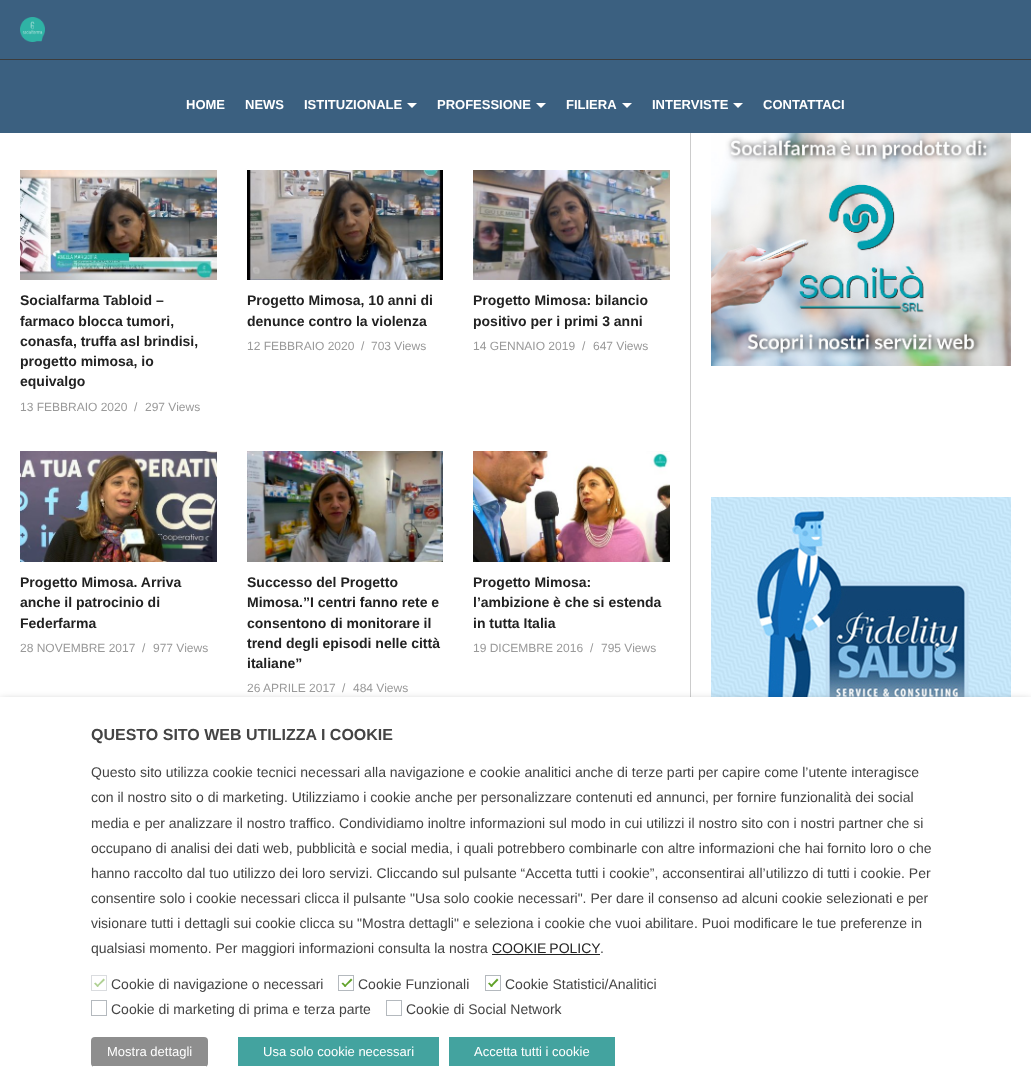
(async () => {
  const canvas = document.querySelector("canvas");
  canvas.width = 1031;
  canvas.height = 1082;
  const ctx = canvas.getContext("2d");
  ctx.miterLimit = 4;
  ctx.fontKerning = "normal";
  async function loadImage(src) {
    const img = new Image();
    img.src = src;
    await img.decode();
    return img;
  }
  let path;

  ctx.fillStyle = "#ffffff";
  ctx.fillRect(0, 0, 1031, 1082);
  ctx.fillStyle = "#3b6080";
  ctx.fillRect(0, 0, 1031, 133);
  ctx.drawImage(await loadImage("img/1.png"), 20, 17, 25, 25);
  ctx.fillStyle = "#3c3c3c";
  ctx.fillRect(0, 59, 1031, 1);
  ctx.fillStyle = "#ffffff";
  path = new Path2D("M407 103H417L412 108Z");
  ctx.fill(path);
  path = new Path2D("M536 103H546L541 108Z");
  ctx.fill(path);
  path = new Path2D("M622 103H632L627 108Z");
  ctx.fill(path);
  path = new Path2D("M733 103H743L738 108Z");
  ctx.fill(path);
  ctx.drawImage(await loadImage("img/2.png"), 20, 170, 197, 110);
  ctx.drawImage(await loadImage("img/3.png"), 247, 170, 196, 110);
  ctx.drawImage(await loadImage("img/4.png"), 473, 170, 197, 110);
  ctx.drawImage(await loadImage("img/5.png"), 20, 451, 197, 111);
  ctx.drawImage(await loadImage("img/6.png"), 247, 451, 196, 111);
  ctx.drawImage(await loadImage("img/7.png"), 473, 451, 197, 111);
  ctx.fillStyle = "#cccccc";
  ctx.fillRect(690, 133, 1, 564);
  ctx.drawImage(await loadImage("img/8.png"), 711, 133, 300, 233);
  ctx.drawImage(await loadImage("img/9.png"), 711, 497, 300, 200);
  ctx.fillStyle = "rgba(0, 0, 0, 0.5)";
  ctx.filter = "blur(5px)";
  ctx.beginPath();
  ctx.rect(0, 702, 1031, 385);
  ctx.fill();
  ctx.filter = "none";
  ctx.fillStyle = "#ffffff";
  ctx.fillRect(0, 697, 1031, 385);
  ctx.fillStyle = "#222222";
  ctx.fillRect(492, 954, 108, 1);
  ctx.strokeStyle = "#dadcdf";
  ctx.strokeRect(91.5, 975.5, 15, 15);
  ctx.fillStyle = "#b0d194";
  path = new Path2D("M103.5 978.5L105 980L97.5 987L96.5 986Z");
  ctx.fill(path);
  path = new Path2D("M95.5 982.5L99 986L97.5 987L94 983.5Z");
  ctx.fill(path);
  ctx.strokeStyle = "#b4b9be";
  ctx.strokeRect(338.5, 975.5, 15, 15);
  ctx.fillStyle = "#61a229";
  path = new Path2D("M351 978.5L352.5 980L345 987L344 986Z");
  ctx.fill(path);
  path = new Path2D("M343 982.5L346.5 986L345 987L341.5 983.5Z");
  ctx.fill(path);
  ctx.strokeRect(485.5, 975.5, 15, 15);
  path = new Path2D("M497 978.5L498.5 980L491.5 987L490 986Z");
  ctx.fill(path);
  path = new Path2D("M489.5 982.5L493 986L491.5 987L488 983.5Z");
  ctx.fill(path);
  ctx.strokeRect(91.5, 1000.5, 15, 15);
  ctx.strokeRect(386.5, 1000.5, 15, 15);
  ctx.fillStyle = "#8e8e8e";
  ctx.beginPath();
  ctx.roundRect(91, 1037, 117, 30, 4);
  ctx.fill();
  for (const [x, y, w, h, color] of [
    [93, 1066, 113, 1, "#ffffff"],
    [238, 1037, 201, 29, "#43a39f"],
    [449, 1037, 166, 29, "#43a39f"],
  ]) {
    ctx.fillStyle = color;
    ctx.fillRect(x, y, w, h);
  }
  ctx.font = "bold 13px Liberation Sans";
  ctx.fillStyle = "#ffffff";
  for (const [text, x, y] of [
    ["HOME", 186, 109],
    ["NEWS", 245, 109],
    ["ISTITUZIONALE", 304, 109],
    ["PROFESSIONE", 437, 109],
    ["FILIERA", 566, 109],
    ["INTERVISTE", 652, 109],
    ["CONTATTACI", 763, 109],
  ]) {
    ctx.fillText(text, x, y);
  }
  ctx.font = "bold 14px Liberation Sans";
  ctx.fillStyle = "#222222";
  for (const [text, x, y] of [
    ["Socialfarma Tabloid –", 20, 305],
    ["farmaco blocca tumori,", 20, 326],
    ["conasfa, truffa asl brindisi,", 20, 346],
    ["progetto mimosa, io", 20, 366],
    ["equivalgo", 20, 386],
  ]) {
    ctx.fillText(text, x, y);
  }
  ctx.font = "12px Liberation Sans";
  ctx.fillStyle = "#999999";
  for (const [text, x, y] of [
    ["13 FEBBRAIO 2020", 20, 411],
    ["/", 134, 411],
    ["297 Views", 145, 411],
  ]) {
    ctx.fillText(text, x, y);
  }
  ctx.font = "bold 14px Liberation Sans";
  ctx.fillStyle = "#222222";
  ctx.fillText("Progetto Mimosa, 10 anni di", 247, 305);
  ctx.fillText("denunce contro la violenza", 247, 326);
  ctx.font = "12px Liberation Sans";
  ctx.fillStyle = "#999999";
  for (const [text, x, y] of [
    ["12 FEBBRAIO 2020", 247, 350],
    ["/", 361, 350],
    ["703 Views", 371, 350],
  ]) {
    ctx.fillText(text, x, y);
  }
  ctx.font = "bold 14px Liberation Sans";
  ctx.fillStyle = "#222222";
  ctx.fillText("Progetto Mimosa: bilancio", 473, 305);
  ctx.fillText("positivo per i primi 3 anni", 473, 326);
  ctx.font = "12px Liberation Sans";
  ctx.fillStyle = "#999999";
  for (const [text, x, y] of [
    ["14 GENNAIO 2019", 473, 350],
    ["/", 582, 350],
    ["647 Views", 593, 350],
  ]) {
    ctx.fillText(text, x, y);
  }
  ctx.font = "bold 14px Liberation Sans";
  ctx.fillStyle = "#222222";
  for (const [text, x, y] of [
    ["Progetto Mimosa. Arriva", 20, 587],
    ["anche il patrocinio di", 20, 607],
    ["Federfarma", 20, 628],
  ]) {
    ctx.fillText(text, x, y);
  }
  ctx.font = "12px Liberation Sans";
  ctx.fillStyle = "#999999";
  for (const [text, x, y] of [
    ["28 NOVEMBRE 2017", 20, 652],
    ["/", 142, 652],
    ["977 Views", 153, 652],
  ]) {
    ctx.fillText(text, x, y);
  }
  ctx.font = "bold 14px Liberation Sans";
  ctx.fillStyle = "#222222";
  for (const [text, x, y] of [
    ["Successo del Progetto", 247, 587],
    ["Mimosa.”I centri fanno rete e", 247, 607],
    ["consentono di monitorare il", 247, 628],
    ["trend degli episodi nelle città", 247, 648],
    ["italiane”", 247, 668],
  ]) {
    ctx.fillText(text, x, y);
  }
  ctx.font = "12px Liberation Sans";
  ctx.fillStyle = "#999999";
  for (const [text, x, y] of [
    ["26 APRILE 2017", 247, 692],
    ["/", 342, 692],
    ["484 Views", 353, 692],
  ]) {
    ctx.fillText(text, x, y);
  }
  ctx.font = "bold 14px Liberation Sans";
  ctx.fillStyle = "#222222";
  for (const [text, x, y] of [
    ["Progetto Mimosa:", 473, 587],
    ["l’ambizione è che si estenda", 473, 607],
    ["in tutta Italia", 473, 628],
  ]) {
    ctx.fillText(text, x, y);
  }
  ctx.font = "12px Liberation Sans";
  ctx.fillStyle = "#999999";
  for (const [text, x, y] of [
    ["19 DICEMBRE 2016", 473, 652],
    ["/", 590, 652],
    ["795 Views", 601, 652],
  ]) {
    ctx.fillText(text, x, y);
  }
  ctx.font = "bold 16px Liberation Sans";
  ctx.fillStyle = "#444444";
  ctx.fillText("QUESTO SITO WEB UTILIZZA I COOKIE", 91, 740);
  ctx.font = "14px Liberation Sans";
  for (const [text, x, y] of [
    ["Questo sito utilizza cookie tecnici necessari alla navigazione e cookie analitici anche di terze parti per capire come l’utente interagisce", 91, 777],
    ["con il nostro sito o di marketing. Utilizziamo i cookie anche per personalizzare contenuti ed annunci, per fornire funzionalità dei social", 91, 802],
    ["media e per analizzare il nostro traffico. Condividiamo inoltre informazioni sul modo in cui utilizzi il nostro sito con i nostri partner che si", 91, 828],
    ["occupano di analisi dei dati web, pubblicità e social media, i quali potrebbero combinarle con altre informazioni che hai fornito loro o che", 91, 853],
    ["hanno raccolto dal tuo utilizzo dei loro servizi. Cliccando sul pulsante “Accetta tutti i cookie”, acconsentirai all’utilizzo di tutti i cookie. Per", 91, 878],
    ["consentire solo i cookie necessari clicca il pulsante \"Usa solo cookie necessari\". Per dare il consenso ad alcuni cookie selezionati e per", 91, 903],
    ["visionare tutti i dettagli sui cookie clicca su \"Mostra dettagli\" e seleziona i cookie che vuoi abilitare. Puoi modificare le tue preferenze in", 91, 928],
    ["qualsiasi momento. Per maggiori informazioni consulta la nostra", 91, 953],
  ]) {
    ctx.fillText(text, x, y);
  }
  ctx.wordSpacing = "-1px";
  ctx.fillStyle = "#222222";
  ctx.fillText("COOKIE POLICY", 492, 953);
  ctx.wordSpacing = "0px";
  ctx.fillStyle = "#444444";
  for (const [text, x, y] of [
    [".", 600, 953],
    ["Cookie di navigazione o necessari", 111, 989],
    ["Cookie Funzionali", 358, 989],
    ["Cookie Statistici/Analitici", 505, 989],
    ["Cookie di marketing di prima e terza parte", 111, 1014],
    ["Cookie di Social Network", 406, 1014],
  ]) {
    ctx.fillText(text, x, y);
  }
  ctx.font = "13px Liberation Sans";
  ctx.fillStyle = "#ffffff";
  for (const [text, x, y] of [
    ["Mostra dettagli", 107, 1056],
    ["Usa solo cookie necessari", 263, 1056],
    ["Accetta tutti i cookie", 474, 1056],
  ]) {
    ctx.fillText(text, x, y);
  }
})();
